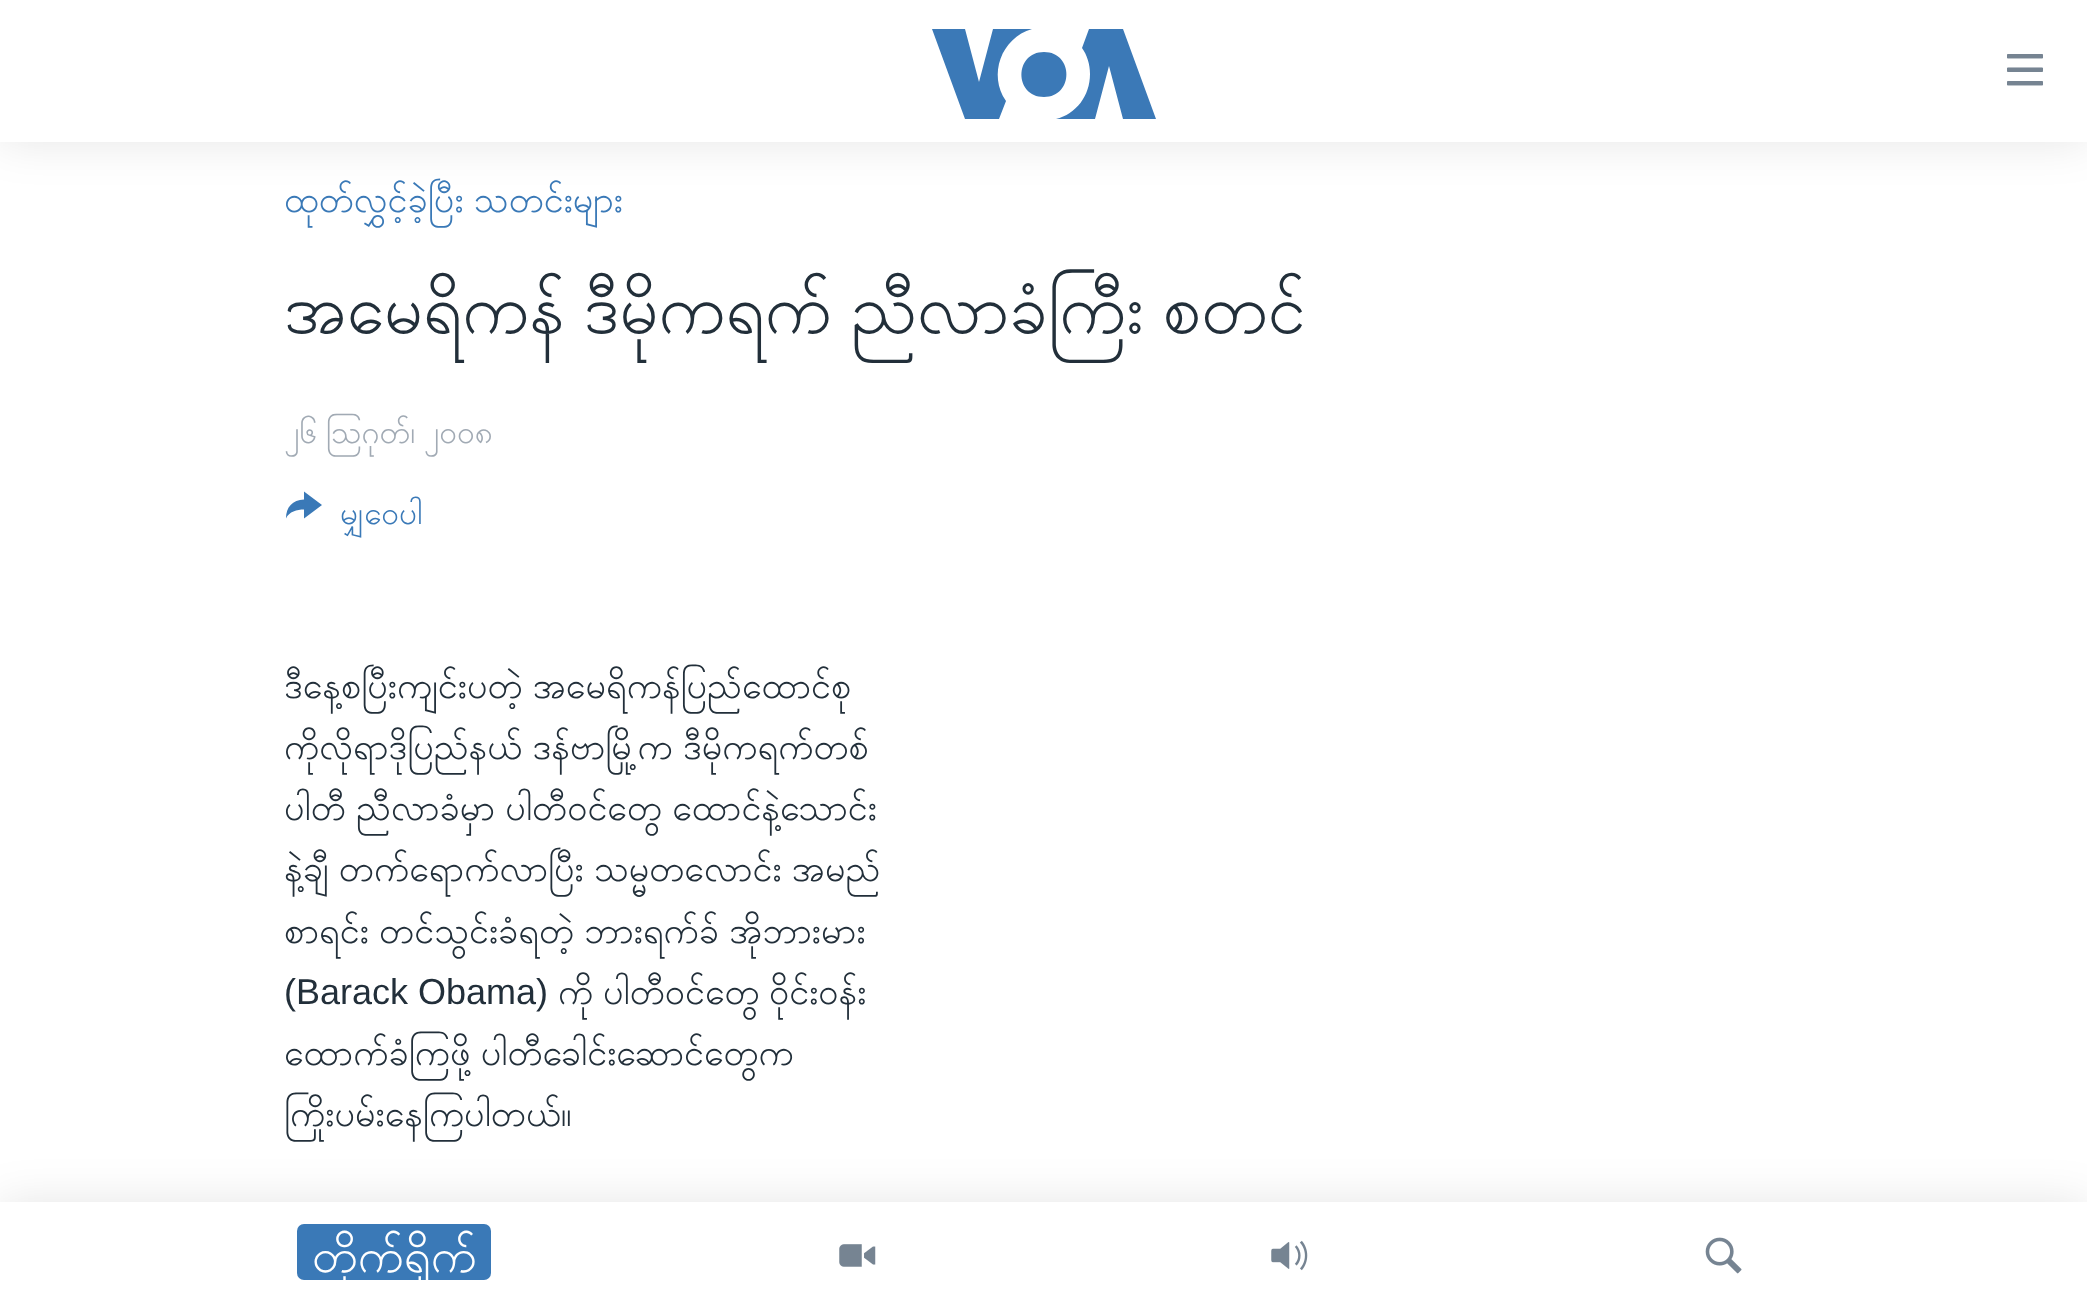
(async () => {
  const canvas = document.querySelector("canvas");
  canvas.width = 2087;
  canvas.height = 1312;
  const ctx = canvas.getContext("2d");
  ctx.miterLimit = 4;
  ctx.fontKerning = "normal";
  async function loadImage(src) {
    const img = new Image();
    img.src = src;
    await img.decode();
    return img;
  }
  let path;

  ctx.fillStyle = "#ffffff";
  ctx.fillRect(0, 0, 2087, 1312);
  ctx.fillStyle = "#3a79b7";
  path = new Path2D("M286 518.5C286 507 292.5 500 304 499.5V491.5L322 505L304 518.5V509.5C297 509.5 289 511.5 286 518.5Z");
  ctx.fill(path);
  ctx.fillStyle = "rgba(0, 0, 0, 0.1)";
  ctx.filter = "blur(22.5px)";
  ctx.beginPath();
  ctx.rect(0, 0, 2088, 142);
  ctx.fill();
  ctx.filter = "none";
  ctx.fillStyle = "#ffffff";
  ctx.fillRect(0, 0, 2087, 142);
  ctx.fillStyle = "#3b79b7";
  path = new Path2D("M1006 101L999 119H965L932 29H965L979 82L993 29H1032C1001 38 988 75 1006 101ZM1044 52C1014 52 1014 97 1044 97C1074 97 1074 52 1044 52ZM1090 74C1090 96 1076 114 1056 119H1095L1109 66L1123 119H1156L1123 29H1089L1082 48C1087 55 1090 64 1090 74Z");
  ctx.fill(path);
  ctx.drawImage(await loadImage("img/1.png"), 2007, 54, 36, 32);
  ctx.fillStyle = "rgba(0, 0, 0, 0.1)";
  ctx.filter = "blur(22.5px)";
  ctx.beginPath();
  ctx.rect(0, 1202, 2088, 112);
  ctx.fill();
  ctx.filter = "none";
  ctx.fillStyle = "#ffffff";
  ctx.fillRect(0, 1202, 2087, 110);
  ctx.fillStyle = "#3a79b7";
  ctx.beginPath();
  ctx.roundRect(297, 1224, 194, 56, 7);
  ctx.fill();
  ctx.drawImage(await loadImage("img/2.png"), 839, 1244, 37, 23);
  ctx.drawImage(await loadImage("img/3.png"), 1271, 1240, 37, 31);
  ctx.drawImage(await loadImage("img/4.png"), 1705, 1237, 37, 37);
  ctx.wordSpacing = "-3px";
  ctx.font = "36px Padauk";
  ctx.fillText("ထုတ်လွှင့်ခဲ့ပြီး သတင်းများ", 284, 212);
  ctx.wordSpacing = "-6px";
  ctx.font = "68.4px Padauk";
  ctx.fillStyle = "#222f3a";
  ctx.fillText("အမေရိကန် ဒီမိုကရက် ညီလာခံကြီး စတင်", 284, 333);
  ctx.wordSpacing = "-3px";
  ctx.font = "31.5px Padauk";
  ctx.fillStyle = "#a1aab4";
  ctx.fillText("၂၆ ဩဂုတ်၊ ၂၀၀၈", 284, 443);
  ctx.wordSpacing = "0px";
  ctx.fillStyle = "#3a79b7";
  ctx.fillText("မျှဝေပါ", 340, 524);
  ctx.wordSpacing = "-3px";
  ctx.font = "36px Padauk";
  ctx.fillStyle = "#222f3a";
  for (const [text, x, y] of [
    ["ဒီနေ့စပြီးကျင်းပတဲ့ အမေရိကန်ပြည်ထောင်စု", 284, 698],
    ["ကိုလိုရာဒိုပြည်နယ် ဒန်ဗာမြို့က ဒီမိုကရက်တစ်", 284, 759],
    ["ပါတီ ညီလာခံမှာ ပါတီဝင်တွေ ထောင်နဲ့သောင်း", 284, 820],
    ["နဲ့ချီ တက်ရောက်လာပြီး သမ္မတလောင်း အမည်", 284, 881],
    ["စာရင်း တင်သွင်းခံရတဲ့ ဘားရက်ခ် အိုဘားမား", 284, 943],
  ]) {
    ctx.fillText(text, x, y);
  }
  ctx.wordSpacing = "0px";
  ctx.font = "36px Liberation Sans";
  ctx.fillText("(Barack Obama)", 284, 1004);
  ctx.font = "36px Padauk";
  for (const [text, x, y] of [
    ["ကို", 558, 1004],
    ["ပါတီဝင်တွေ", 603, 1004],
    ["ဝိုင်းဝန်း", 769, 1004],
  ]) {
    ctx.fillText(text, x, y);
  }
  ctx.wordSpacing = "-3px";
  ctx.fillText("ထောက်ခံကြဖို့ ပါတီခေါင်းဆောင်တွေက", 284, 1065);
  ctx.wordSpacing = "0px";
  ctx.fillText("ကြိုးပမ်းနေကြပါတယ်။", 284, 1126);
  ctx.font = "47px Padauk";
  ctx.fillStyle = "#ffffff";
  ctx.fillText("တိုက်ရိုက်", 312, 1272);
})();
